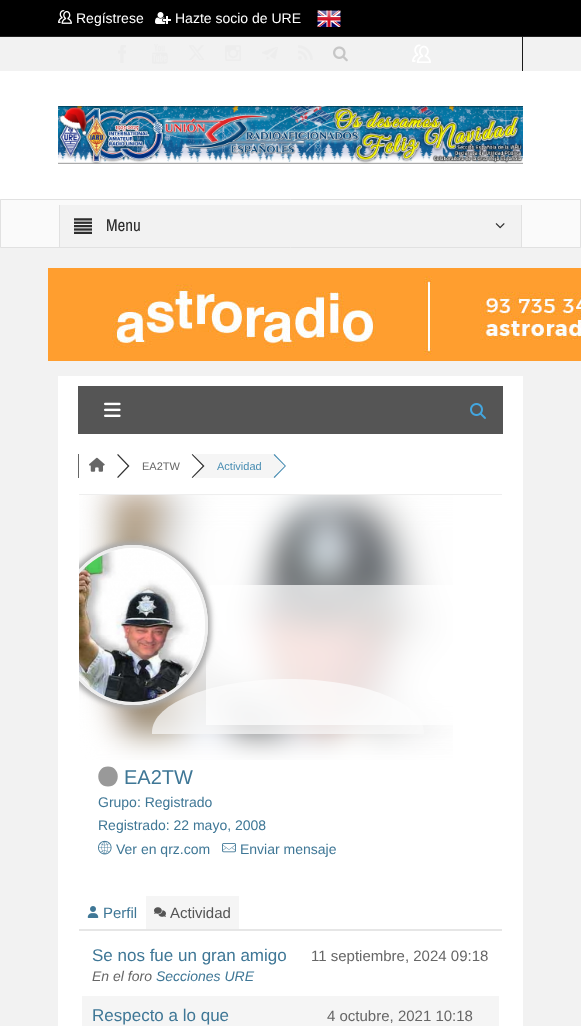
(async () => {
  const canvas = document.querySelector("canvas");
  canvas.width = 581;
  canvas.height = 1026;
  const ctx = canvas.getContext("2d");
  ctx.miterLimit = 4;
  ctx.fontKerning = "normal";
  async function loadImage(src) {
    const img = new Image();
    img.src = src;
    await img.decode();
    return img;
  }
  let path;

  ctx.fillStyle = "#f2f2f2";
  ctx.fillRect(0, 0, 581, 1026);
  ctx.fillStyle = "#000000";
  ctx.fillRect(0, 0, 581, 36);
  ctx.fillStyle = "#222222";
  ctx.fillRect(0, 36, 581, 1);
  ctx.drawImage(await loadImage("img/1.png"), 58, 10, 14, 14);
  ctx.drawImage(await loadImage("img/2.png"), 155, 12, 16, 12);
  ctx.drawImage(await loadImage("img/3.png"), 317, 10, 24, 17);
  ctx.drawImage(await loadImage("img/4.png"), 118, 45, 8, 18);
  ctx.drawImage(await loadImage("img/5.png"), 152, 44, 16, 20);
  ctx.drawImage(await loadImage("img/6.png"), 189, 45, 15, 15);
  ctx.drawImage(await loadImage("img/7.png"), 225, 45, 16, 16);
  ctx.drawImage(await loadImage("img/8.png"), 262, 47, 16, 13);
  ctx.drawImage(await loadImage("img/9.png"), 298, 45, 15, 15);
  ctx.drawImage(await loadImage("img/10.png"), 333, 46, 15, 16);
  ctx.fillStyle = "#1b1b1b";
  path = new Path2D("M523 36V71H522V37Z");
  ctx.fill(path);
  ctx.drawImage(await loadImage("img/11.png"), 412, 44, 19, 19);
  ctx.fillStyle = "#ffffff";
  ctx.fillRect(0, 71, 581, 128);
  ctx.drawImage(await loadImage("img/12.png"), 58, 106, 465, 58);
  ctx.fillStyle = "#fafafa";
  ctx.beginPath();
  ctx.rect(0.5, 199.5, 580, 48);
  ctx.fill();
  ctx.strokeStyle = "#e1e1e1";
  ctx.stroke();
  for (const [x, y, w, h, color] of [
    [60, 205, 461, 42, "#f2f2f2"],
    [521, 205, 1, 42, "#e1e1e1"],
    [59, 205, 1, 42, "#e1e1e1"],
  ]) {
    ctx.fillStyle = color;
    ctx.fillRect(x, y, w, h);
  }
  ctx.drawImage(await loadImage("img/13.png"), 74, 218, 18, 16);
  ctx.drawImage(await loadImage("img/14.png"), 495, 223, 10, 6);
  ctx.drawImage(await loadImage("img/15.png"), 48, 268, 533, 93);
  ctx.fillStyle = "#ffffff";
  ctx.fillRect(58, 376, 465, 650);
  ctx.fillStyle = "#555555";
  ctx.fillRect(78, 386, 425, 48);
  ctx.drawImage(await loadImage("img/16.png"), 104, 402, 17, 15);
  ctx.drawImage(await loadImage("img/17.png"), 470, 403, 16, 16);
  ctx.fillStyle = "#666666";
  ctx.fillRect(78, 454, 1, 24);
  ctx.drawImage(await loadImage("img/18.png"), 89, 457, 16, 15);
  ctx.fillStyle = "#333333";
  path = new Path2D("M118 454L117 455L127.5 466L117 477L118 478L129.5 466Z");
  ctx.fill(path);
  ctx.fillStyle = "#ffffff";
  path = new Path2D("M116 454L127.5 466L116 478L104 466Z");
  ctx.fill(path);
  ctx.fillStyle = "#f5f5f5";
  ctx.fillRect(195, 454, 81, 24);
  ctx.fillStyle = "#333333";
  path = new Path2D("M192.5 454L191.5 455L202.5 466L191.5 477L192.5 478L204.5 466Z");
  ctx.fill(path);
  ctx.fillStyle = "#4a8eb3";
  path = new Path2D("M274.5 454L273.5 455L284.5 466L273.5 477L274.5 478L286 466Z");
  ctx.fill(path);
  ctx.drawImage(await loadImage("img/19.png"), 79, 495, 374, 265);
  ctx.save();
  ctx.beginPath();
  ctx.rect(79, 494, 419, 240);
  ctx.clip();
  ctx.fillStyle = "rgba(249, 249, 249, 0.7)";
  path = new Path2D("M288 679C363 679 424 703 424 732V784H152V732C152 703 213 679 288 679Z");
  ctx.fill(path);
  ctx.restore();
  ctx.fillStyle = "#eeeeee";
  ctx.fillRect(79, 494, 423, 1);
  ctx.fillStyle = "rgba(255, 255, 255, 0.7)";
  path = new Path2D("M212 585H502V725H206V588C206 586 209 585 212 585Z");
  ctx.fill(path);
  ctx.save();
  ctx.beginPath();
  ctx.rect(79, 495, 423, 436);
  ctx.clip();
  ctx.fillStyle = "#aaaaaa";
  ctx.filter = "blur(2.5px)";
  ctx.beginPath();
  ctx.roundRect(55, 542, 156, 166, 78);
  ctx.fill();
  ctx.filter = "none";
  ctx.restore();
  ctx.save();
  ctx.beginPath();
  ctx.rect(79, 495, 423, 436);
  ctx.clip();
  ctx.fillStyle = "#fefefe";
  ctx.beginPath();
  ctx.ellipse(133, 625, 75, 80, 0, 0, Math.PI * 2);
  ctx.fill();
  path = new Path2D("M133 546.5C173.5 546.5 206.5 581.5 206.5 625C206.5 668.5 173.5 703.5 133 703.5C92.5 703.5 59.5 668.5 59.5 625C59.5 581.5 92.5 546.5 133 546.5Z");
  ctx.strokeStyle = "#eeeeee";
  ctx.lineWidth = 3;
  ctx.stroke(path);
  ctx.restore();
  ctx.drawImage(await loadImage("img/20.png"), 79, 548, 126, 154);
  ctx.fillStyle = "#999999";
  path = new Path2D("M108 786.5C121 786.5 121 766.5 108 766.5C95 766.5 95 786.5 108 786.5Z");
  ctx.fill(path);
  ctx.drawImage(await loadImage("img/21.png"), 98, 840, 14, 15);
  ctx.drawImage(await loadImage("img/22.png"), 222, 843, 14, 10);
  ctx.fillStyle = "#e6e6e6";
  ctx.fillRect(79, 929, 423, 2);
  ctx.drawImage(await loadImage("img/23.png"), 87, 906, 12, 12);
  ctx.fillStyle = "#f5f5f5";
  ctx.fillRect(146, 896, 93, 33);
  ctx.drawImage(await loadImage("img/24.png"), 154, 907, 12, 10);
  ctx.fillRect(82, 996, 417, 30);
  ctx.font = "14px Liberation Sans";
  ctx.fillStyle = "#ffffff";
  ctx.fillText("Regístrese", 76, 23);
  ctx.fillText("Hazte socio de URE", 175, 23);
  ctx.font = "17px Archivo Narrow";
  ctx.fillStyle = "#2d2d2d";
  ctx.fillText("Menu", 106, 231);
  ctx.font = "11px Liberation Sans";
  ctx.fillStyle = "#666666";
  ctx.fillText("EA2TW", 142, 470);
  ctx.fillStyle = "#ffffff";
  path = new Path2D("M191 454L202.5 466L191 478L179 466Z");
  ctx.fill(path);
  ctx.fillStyle = "#4a8eb3";
  ctx.fillText("Actividad", 217, 470);
  ctx.fillStyle = "#f5f5f5";
  path = new Path2D("M272.5 454L284.5 466L272.5 478L260.5 466Z");
  ctx.fill(path);
  ctx.font = "20px Liberation Sans";
  ctx.fillStyle = "#3f7796";
  ctx.fillText("EA2TW", 124, 784);
  ctx.font = "14px Liberation Sans";
  for (const [text, x, y] of [
    ["Grupo: Registrado", 98, 807],
    ["Registrado: 22 mayo, 2008", 98, 830],
    ["Ver en qrz.com", 116, 854],
    ["Enviar mensaje", 240, 854],
  ]) {
    ctx.fillText(text, x, y);
  }
  ctx.font = "15px Liberation Sans";
  ctx.fillText("Perfil", 103, 918);
  ctx.fillStyle = "#555555";
  ctx.fillText("Actividad", 170, 918);
  ctx.font = "17px Liberation Sans";
  ctx.fillStyle = "#3f7796";
  ctx.fillText("Se nos fue un gran amigo", 92, 961);
  ctx.font = "italic 14px Liberation Sans";
  ctx.fillStyle = "#666666";
  ctx.fillText("En el foro", 92, 981);
  ctx.fillStyle = "#3f7796";
  ctx.fillText("Secciones URE", 156, 981);
  ctx.font = "15px Liberation Sans";
  ctx.fillStyle = "#666666";
  ctx.fillText("11 septiembre, 2024 09:18", 311, 961);
  ctx.font = "17px Liberation Sans";
  ctx.fillStyle = "#3f7796";
  ctx.fillText("Respecto a lo que", 92, 1021);
  ctx.font = "15px Liberation Sans";
  ctx.fillStyle = "#666666";
  ctx.fillText("4 octubre, 2021 10:18", 327, 1021);
})();
